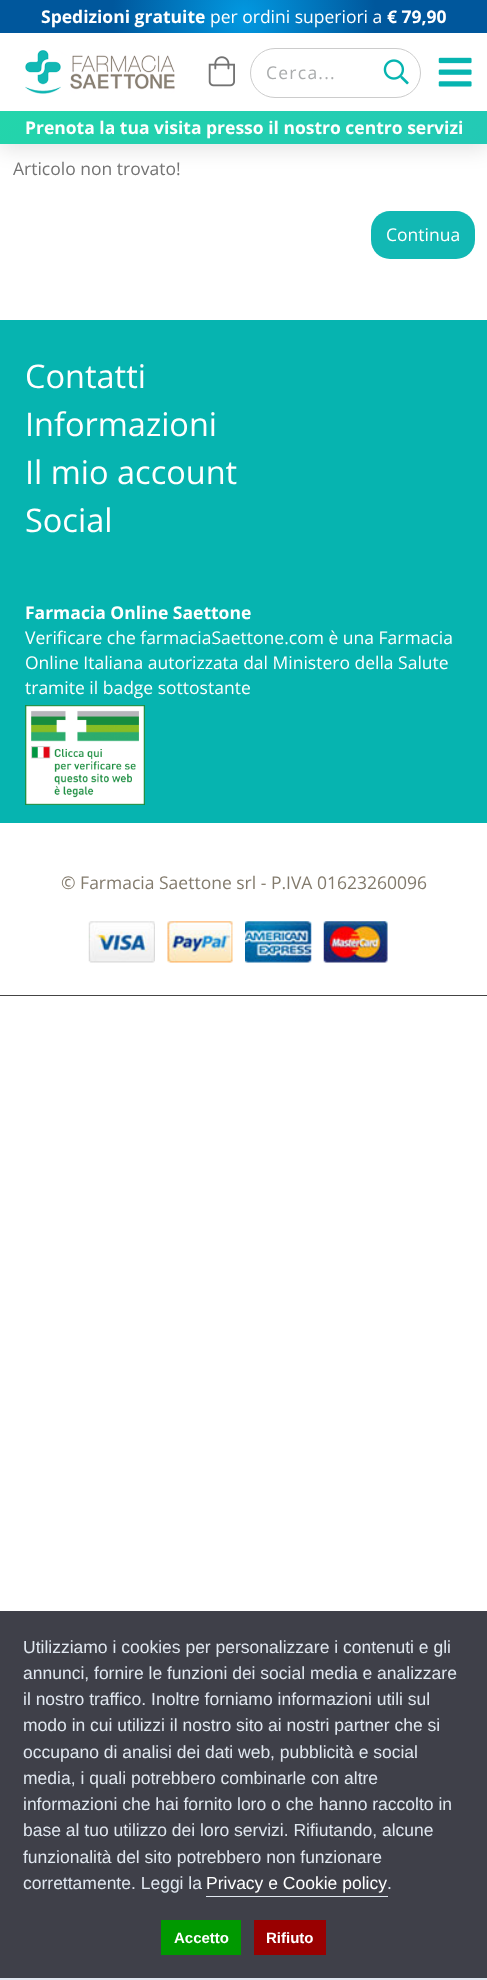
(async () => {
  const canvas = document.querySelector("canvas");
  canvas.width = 487;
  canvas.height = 1980;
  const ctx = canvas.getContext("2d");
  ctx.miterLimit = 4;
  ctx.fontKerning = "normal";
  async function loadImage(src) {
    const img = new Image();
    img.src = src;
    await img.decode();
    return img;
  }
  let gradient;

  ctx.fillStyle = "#ffffff";
  ctx.fillRect(0, 0, 487, 1980);
  ctx.fillStyle = "rgba(0, 0, 0, 0.1)";
  ctx.filter = "blur(10px)";
  ctx.beginPath();
  ctx.rect(0, 6, 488, 144);
  ctx.fill();
  ctx.filter = "none";
  ctx.fillStyle = "#ffffff";
  ctx.fillRect(0, 33, 487, 78);
  gradient = ctx.createRadialGradient(244, 16, 0, 244, 16, 244);
  gradient.addColorStop(0, "#0299e1");
  gradient.addColorStop(0.54, "#00579c");
  ctx.fillStyle = gradient;
  ctx.fillRect(0, 0, 487, 33);
  ctx.drawImage(await loadImage("img/1.png"), 25, 50, 150, 44);
  ctx.drawImage(await loadImage("img/2.png"), 208, 56, 27, 31);
  ctx.beginPath();
  ctx.roundRect(250.5, 48.5, 170, 49, 24.5);
  ctx.strokeStyle = "#cccccc";
  ctx.stroke();
  ctx.drawImage(await loadImage("img/3.png"), 383, 59, 26, 26);
  ctx.drawImage(await loadImage("img/4.png"), 438, 57, 34, 30);
  gradient = ctx.createLinearGradient(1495, 696, 455, -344);
  gradient.addColorStop(0, "#23a6d5");
  gradient.addColorStop(1, "#23d5ab");
  ctx.fillStyle = gradient;
  ctx.fillRect(0, 111, 487, 33);
  ctx.fillStyle = "#12b8b4";
  ctx.beginPath();
  ctx.roundRect(371, 211, 104, 48, 19);
  ctx.fill();
  ctx.fillStyle = "#06b4b0";
  ctx.fillRect(0, 320, 487, 503);
  ctx.drawImage(await loadImage("img/5.png"), 25, 705, 120, 100);
  ctx.fillStyle = "#444444";
  ctx.fillRect(0, 995, 487, 1);
  ctx.drawImage(await loadImage("img/6.png"), 88, 921, 67, 42);
  ctx.drawImage(await loadImage("img/7.png"), 167, 921, 66, 42);
  ctx.drawImage(await loadImage("img/8.png"), 245, 921, 67, 42);
  ctx.drawImage(await loadImage("img/9.png"), 323, 921, 65, 42);
  for (const [x, y, w, h, color] of [
    [0, 1611, 487, 367, "#3f4049"],
    [0, 1978, 487, 2, "#e0e7f0"],
    [206, 1896, 182, 1, "#e0e7f0"],
    [161, 1920, 80, 35, "#009900"],
    [254, 1920, 72, 35, "#990000"],
  ]) {
    ctx.fillStyle = color;
    ctx.fillRect(x, y, w, h);
  }
  ctx.font = "bold 17.5px Open Sans";
  ctx.fillStyle = "#ffffff";
  ctx.fillText("Spedizioni gratuite", 41, 23);
  ctx.font = "17.5px Open Sans";
  ctx.fillText("per ordini superiori a", 210, 23);
  ctx.font = "bold 17.5px Open Sans";
  ctx.fillText("€ 79,90", 387, 23);
  ctx.letterSpacing = "1.25px";
  ctx.font = "17.5px Open Sans";
  ctx.fillStyle = "#aaacad";
  ctx.fillText("Cerca...", 266, 79);
  ctx.letterSpacing = "0px";
  ctx.font = "bold 17.5px Open Sans";
  ctx.fillStyle = "#ffffff";
  ctx.fillText("Prenota la tua visita presso il nostro centro servizi", 25, 134);
  ctx.font = "17.5px Open Sans";
  ctx.fillStyle = "#737373";
  ctx.fillText("Articolo non trovato!", 13, 175);
  ctx.fillStyle = "#ffffff";
  ctx.fillText("Continua", 386, 241);
  ctx.font = "32.5px Open Sans";
  for (const [text, x, y] of [
    ["Contatti", 25, 388],
    ["Informazioni", 25, 436],
    ["Il mio account", 25, 484],
    ["Social", 25, 532],
  ]) {
    ctx.fillText(text, x, y);
  }
  ctx.font = "bold 17.5px Open Sans";
  ctx.fillText("Farmacia Online Saettone", 25, 619);
  ctx.font = "17.5px Open Sans";
  for (const [text, x, y] of [
    ["Verificare che farmaciaSaettone.com è una Farmacia", 25, 644],
    ["Online Italiana autorizzata dal Ministero della Salute", 25, 669],
    ["tramite il badge sottostante", 25, 694],
  ]) {
    ctx.fillText(text, x, y);
  }
  ctx.fillStyle = "#837b6d";
  ctx.fillText("© Farmacia Saettone srl - P.IVA 01623260096", 61, 889);
  ctx.font = "17.5px Liberation Sans";
  ctx.fillStyle = "#e0e7f0";
  for (const [text, x, y] of [
    ["Utilizziamo i cookies per personalizzare i contenuti e gli", 23, 1653],
    ["annunci, fornire le funzioni dei social media e analizzare", 23, 1679],
    ["il nostro traffico. Inoltre forniamo informazioni utili sul", 23, 1705],
    ["modo in cui utilizzi il nostro sito ai nostri partner che si", 23, 1731],
    ["occupano di analisi dei dati web, pubblicità e social", 23, 1758],
    ["media, i quali potrebbero combinarle con altre", 23, 1784],
    ["informazioni che hai fornito loro o che hanno raccolto in", 23, 1810],
    ["base al tuo utilizzo dei loro servizi. Rifiutando, alcune", 23, 1836],
    ["funzionalità del sito potrebbero non funzionare", 23, 1863],
    ["correttamente. Leggi la", 23, 1889],
  ]) {
    ctx.fillText(text, x, y);
  }
  ctx.fillStyle = "#ffffff";
  ctx.fillText("Privacy e Cookie policy", 206, 1889);
  ctx.fillStyle = "#e0e7f0";
  ctx.fillText(".", 387, 1889);
  ctx.font = "bold 15px Liberation Sans";
  ctx.fillStyle = "#ffffff";
  ctx.fillText("Accetto", 174, 1943);
  ctx.fillText("Rifiuto", 266, 1943);
})();
